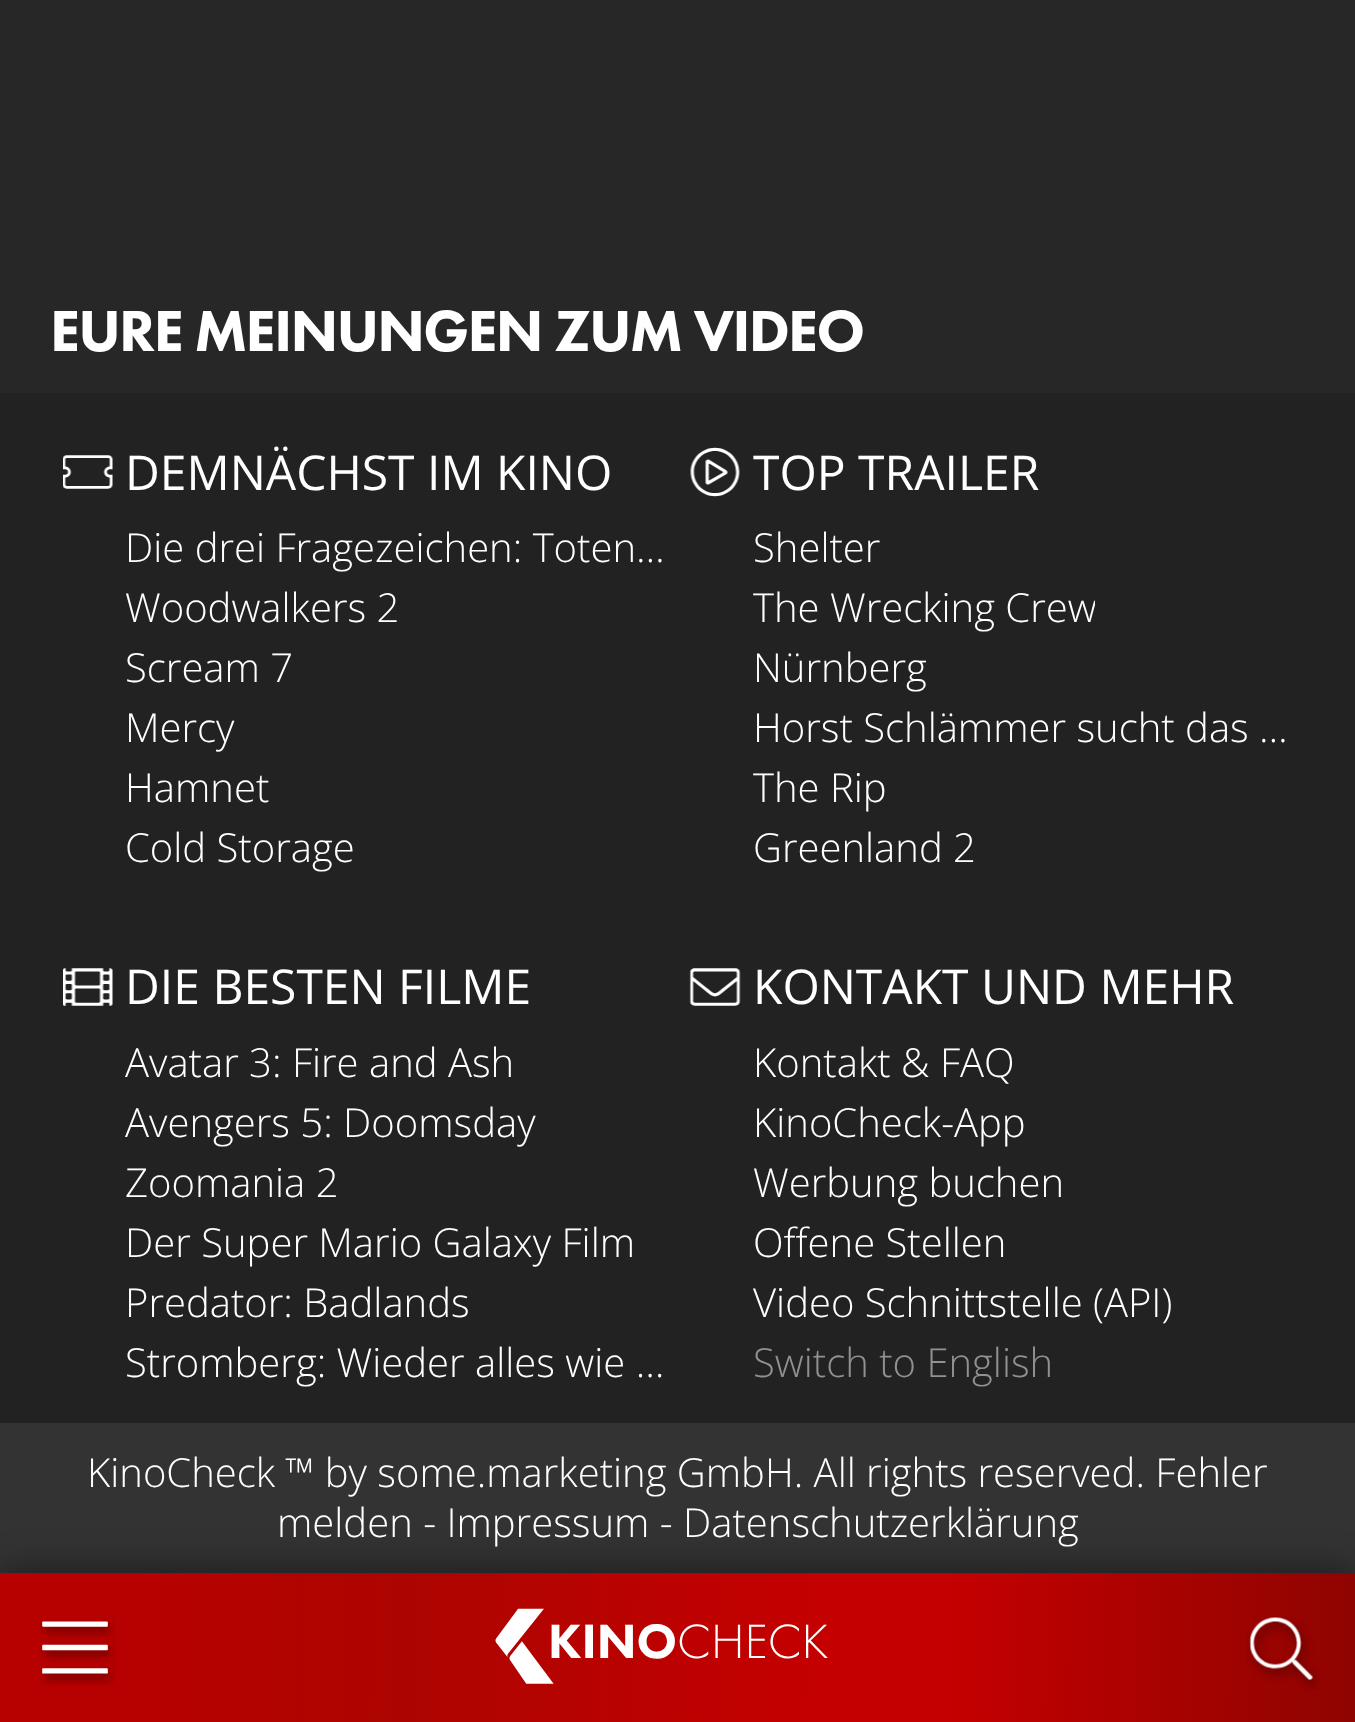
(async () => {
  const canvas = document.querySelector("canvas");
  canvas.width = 1355;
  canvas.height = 1722;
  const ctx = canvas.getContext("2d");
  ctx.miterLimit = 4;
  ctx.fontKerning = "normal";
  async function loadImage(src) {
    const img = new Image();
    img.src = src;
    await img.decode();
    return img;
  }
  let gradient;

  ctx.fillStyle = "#282727";
  ctx.fillRect(0, 0, 1355, 1722);
  ctx.fillStyle = "#222222";
  ctx.fillRect(0, 393, 1355, 1030);
  ctx.drawImage(await loadImage("img/1.png"), 63, 455, 50, 34);
  ctx.drawImage(await loadImage("img/2.png"), 690, 447, 50, 50);
  ctx.drawImage(await loadImage("img/3.png"), 63, 968, 50, 38);
  ctx.drawImage(await loadImage("img/4.png"), 689, 968, 52, 38);
  ctx.fillStyle = "#343333";
  ctx.fillRect(0, 1423, 1355, 150);
  ctx.fillStyle = "rgba(0, 0, 0, 0.5)";
  ctx.filter = "blur(19px)";
  ctx.beginPath();
  ctx.rect(0, 1573, 1355, 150);
  ctx.fill();
  ctx.filter = "none";
  gradient = ctx.createLinearGradient(-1.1, 1636, 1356, 1659);
  gradient.addColorStop(0.1, "#b70100");
  gradient.addColorStop(0.3, "#ac0500");
  gradient.addColorStop(0.6, "#c40000");
  gradient.addColorStop(0.7, "#c40000");
  gradient.addColorStop(1, "#8f0400");
  ctx.fillStyle = gradient;
  ctx.fillRect(0, 1573, 1355, 149);
  ctx.drawImage(await loadImage("img/5.png"), 39, 1619, 77, 67);
  ctx.drawImage(await loadImage("img/7.png"), 1246, 1616, 74, 74);
  ctx.letterSpacing = "-1.8px";
  ctx.font = "60px 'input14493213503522'";
  ctx.fillStyle = "#ffffff";
  ctx.fillText("EURE MEINUNGEN ZUM VIDEO", 50, 351);
  ctx.letterSpacing = "0px";
  ctx.font = "48px Open Sans";
  ctx.fillText("DEMNÄCHST IM KINO", 125, 490);
  ctx.font = "300 40px Open Sans";
  for (const [text, x, y] of [
    ["Die drei Fragezeichen: Toten…", 125, 562],
    ["Woodwalkers 2", 125, 622],
    ["Scream 7", 125, 682],
    ["Mercy", 125, 742],
    ["Hamnet", 125, 802],
    ["Cold Storage", 125, 862],
  ]) {
    ctx.fillText(text, x, y);
  }
  ctx.font = "48px Open Sans";
  ctx.fillText("TOP TRAILER", 753, 490);
  ctx.font = "300 40px Open Sans";
  ctx.fillText("Shelter", 753, 562);
  ctx.save();
  ctx.beginPath();
  ctx.rect(753, 583, 342, 50);
  ctx.clip();
  ctx.fillText("The Wrecking Crew", 753, 622);
  ctx.restore();
  ctx.fillText("Nürnberg", 753, 682);
  ctx.fillText("Horst Schlämmer sucht das …", 753, 742);
  ctx.save();
  ctx.beginPath();
  ctx.rect(753, 763, 132, 50);
  ctx.clip();
  ctx.fillText("The Rip", 753, 802);
  ctx.restore();
  ctx.fillText("Greenland 2", 753, 862);
  ctx.font = "48px Open Sans";
  ctx.fillText("DIE BESTEN FILME", 125, 1004);
  ctx.font = "300 40px Open Sans";
  for (const [text, x, y] of [
    ["Avatar 3: Fire and Ash", 125, 1077],
    ["Avengers 5: Doomsday", 125, 1137],
    ["Zoomania 2", 125, 1197],
    ["Der Super Mario Galaxy Film", 125, 1257],
    ["Predator: Badlands", 125, 1317],
    ["Stromberg: Wieder alles wie …", 125, 1377],
  ]) {
    ctx.fillText(text, x, y);
  }
  ctx.font = "48px Open Sans";
  ctx.fillText("KONTAKT UND MEHR", 753, 1004);
  ctx.font = "300 40px Open Sans";
  for (const [text, x, y] of [
    ["Kontakt & FAQ", 753, 1077],
    ["KinoCheck-App", 753, 1137],
    ["Werbung buchen", 753, 1197],
    ["Offene Stellen", 753, 1257],
    ["Video Schnittstelle (API)", 753, 1317],
  ]) {
    ctx.fillText(text, x, y);
  }
  ctx.fillStyle = "#919191";
  ctx.fillText("Switch to English", 753, 1377);
  ctx.fillStyle = "#ffffff";
  ctx.fillText("KinoCheck ™ by some.marketing GmbH. All rights reserved. Fehler", 87, 1487);
  ctx.fillText("melden - Impressum - Datenschutzerklärung", 277, 1537);
  ctx.font = "50px 'input14493213503522'";
  ctx.fillText("KINO", 548, 1658);
  ctx.drawImage(await loadImage("img/6.png"), 495, 1608, 59, 76);
  ctx.font = "50px 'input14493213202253'";
  ctx.fillText("CHECK", 677, 1658);
})();
